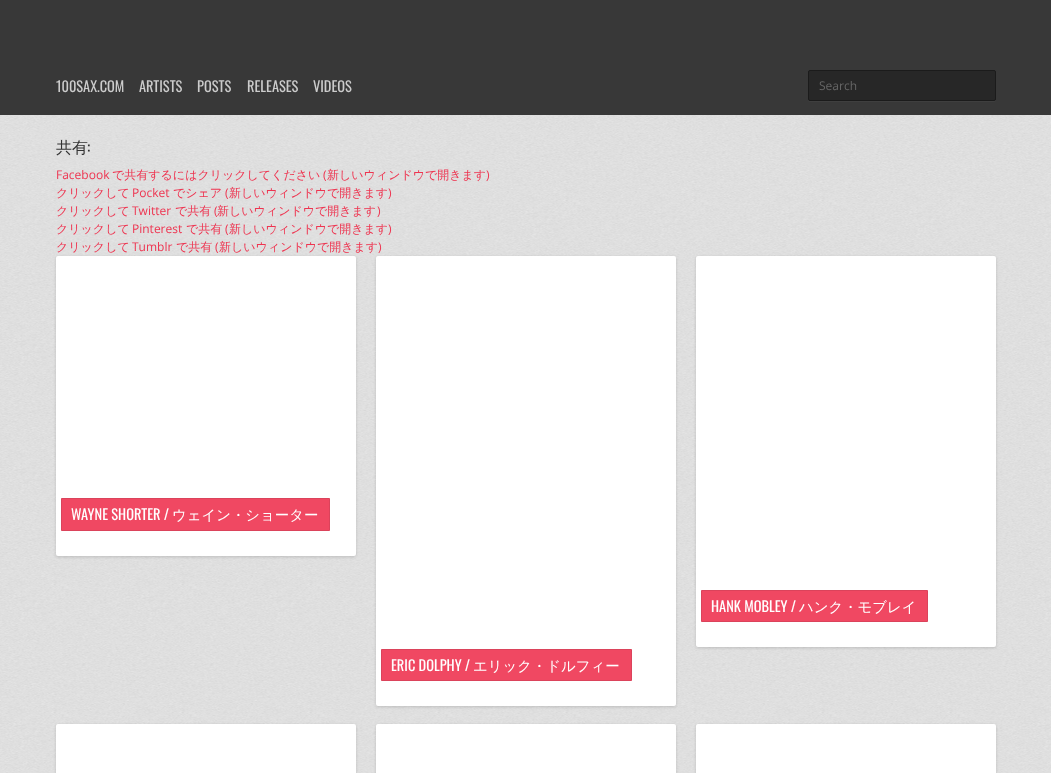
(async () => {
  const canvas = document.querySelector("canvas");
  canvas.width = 1051;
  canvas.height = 773;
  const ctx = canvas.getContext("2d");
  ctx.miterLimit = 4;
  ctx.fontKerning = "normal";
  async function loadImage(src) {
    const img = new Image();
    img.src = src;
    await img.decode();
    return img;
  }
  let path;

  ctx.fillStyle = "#ffffff";
  ctx.fillRect(0, 0, 1051, 773);
  ctx.drawImage(await loadImage("img/1.png"), 0, 115, 1051, 658);
  ctx.fillStyle = "#383838";
  ctx.fillRect(0, 0, 1051, 115);
  ctx.fillStyle = "#3f3f3f";
  path = new Path2D("M808 99V100C808 101 809 102 810 102H994C995 102 996 101 996 100V99C996 100 995 101 994 101H810C809 101 808 100 808 99Z");
  ctx.fill(path);
  ctx.fillStyle = "#272727";
  ctx.beginPath();
  ctx.roundRect(808.5, 70.5, 187, 30, 1.5);
  ctx.fill();
  ctx.strokeStyle = "#1b1b1b";
  ctx.stroke();
  ctx.fillStyle = "rgba(0, 0, 0, 0.15)";
  ctx.filter = "blur(1.5px)";
  ctx.beginPath();
  ctx.roundRect(56, 257, 300, 300, 2);
  ctx.fill();
  ctx.filter = "none";
  ctx.fillStyle = "#ffffff";
  ctx.beginPath();
  ctx.roundRect(56, 256, 300, 300, 2);
  ctx.fill();
  ctx.fillStyle = "#f04862";
  ctx.beginPath();
  ctx.rect(61.5, 498.5, 268, 32);
  ctx.fill();
  ctx.strokeStyle = "#db435b";
  ctx.stroke();
  ctx.fillStyle = "rgba(0, 0, 0, 0.15)";
  ctx.filter = "blur(1.5px)";
  ctx.beginPath();
  ctx.roundRect(696, 257, 300, 391, 2);
  ctx.fill();
  ctx.filter = "none";
  ctx.fillStyle = "#ffffff";
  ctx.beginPath();
  ctx.roundRect(696, 256, 300, 391, 2);
  ctx.fill();
  ctx.fillStyle = "#f04862";
  ctx.beginPath();
  ctx.rect(701.5, 590.5, 226, 31);
  ctx.fill();
  ctx.stroke();
  ctx.fillStyle = "rgba(0, 0, 0, 0.15)";
  ctx.filter = "blur(1.5px)";
  ctx.beginPath();
  ctx.roundRect(376, 257, 300, 450, 2);
  ctx.fill();
  ctx.filter = "none";
  ctx.fillStyle = "#ffffff";
  ctx.beginPath();
  ctx.roundRect(376, 256, 300, 450, 2);
  ctx.fill();
  ctx.fillStyle = "#f04862";
  ctx.beginPath();
  ctx.rect(381.5, 649.5, 250, 31);
  ctx.fill();
  ctx.stroke();
  ctx.fillStyle = "rgba(0, 0, 0, 0.15)";
  ctx.filter = "blur(1.5px)";
  ctx.beginPath();
  ctx.roundRect(56, 725, 300, 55, 2);
  ctx.fill();
  ctx.filter = "none";
  ctx.fillStyle = "#ffffff";
  ctx.beginPath();
  ctx.roundRect(56, 724, 300, 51, 2);
  ctx.fill();
  ctx.fillStyle = "rgba(0, 0, 0, 0.15)";
  ctx.filter = "blur(1.5px)";
  ctx.beginPath();
  ctx.roundRect(376, 725, 300, 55, 2);
  ctx.fill();
  ctx.filter = "none";
  ctx.fillStyle = "#ffffff";
  ctx.beginPath();
  ctx.roundRect(376, 724, 300, 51, 2);
  ctx.fill();
  ctx.fillStyle = "rgba(0, 0, 0, 0.15)";
  ctx.filter = "blur(1.5px)";
  ctx.beginPath();
  ctx.roundRect(696, 725, 300, 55, 2);
  ctx.fill();
  ctx.filter = "none";
  ctx.fillStyle = "#ffffff";
  ctx.beginPath();
  ctx.roundRect(696, 724, 300, 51, 2);
  ctx.fill();
  ctx.font = "14.4px Oswald";
  ctx.fillStyle = "#cccccc";
  for (const [text, x, y] of [
    ["100SAX.COM", 56, 92],
    ["ARTISTS", 139, 92],
    ["POSTS", 197, 92],
    ["RELEASES", 247, 92],
    ["VIDEOS", 313, 92],
  ]) {
    ctx.fillText(text, x, y);
  }
  ctx.font = "12px Open Sans";
  ctx.fillStyle = "#666666";
  ctx.fillText("Search", 819, 90);
  ctx.font = "500 16px WenQuanYi Zen Hei";
  ctx.fillStyle = "#333333";
  ctx.fillText("共有", 56, 153);
  ctx.font = "16px Oswald";
  ctx.fillText(":", 87, 153);
  ctx.font = "12px Open Sans";
  ctx.fillStyle = "#ee3450";
  ctx.fillText("Facebook", 56, 179);
  ctx.font = "500 12px WenQuanYi Zen Hei";
  ctx.fillText("で共有するにはクリックしてください", 112, 179);
  ctx.font = "12px Open Sans";
  ctx.fillText("(", 323, 179);
  ctx.font = "500 12px WenQuanYi Zen Hei";
  ctx.fillText("新しいウィンドウで開きます", 327, 179);
  ctx.font = "12px Open Sans";
  ctx.fillText(")", 486, 179);
  ctx.font = "500 12px WenQuanYi Zen Hei";
  ctx.fillText("クリックして", 56, 197);
  ctx.font = "12px Open Sans";
  ctx.fillText("Pocket", 132, 197);
  ctx.font = "500 12px WenQuanYi Zen Hei";
  ctx.fillText("でシェア", 173, 197);
  ctx.font = "12px Open Sans";
  ctx.fillText("(", 225, 197);
  ctx.font = "500 12px WenQuanYi Zen Hei";
  ctx.fillText("新しいウィンドウで開きます", 229, 197);
  ctx.font = "12px Open Sans";
  ctx.fillText(")", 388, 197);
  ctx.font = "500 12px WenQuanYi Zen Hei";
  ctx.fillText("クリックして", 56, 215);
  ctx.font = "12px Open Sans";
  ctx.fillText("Twitter", 132, 215);
  ctx.font = "500 12px WenQuanYi Zen Hei";
  ctx.fillText("で共有", 175, 215);
  ctx.font = "12px Open Sans";
  ctx.fillText("(", 214, 215);
  ctx.font = "500 12px WenQuanYi Zen Hei";
  ctx.fillText("新しいウィンドウで開きます", 217, 215);
  ctx.font = "12px Open Sans";
  ctx.fillText(")", 377, 215);
  ctx.font = "500 12px WenQuanYi Zen Hei";
  ctx.fillText("クリックして", 56, 233);
  ctx.font = "12px Open Sans";
  ctx.fillText("Pinterest", 132, 233);
  ctx.font = "500 12px WenQuanYi Zen Hei";
  ctx.fillText("で共有", 186, 233);
  ctx.font = "12px Open Sans";
  ctx.fillText("(", 225, 233);
  ctx.font = "500 12px WenQuanYi Zen Hei";
  ctx.fillText("新しいウィンドウで開きます", 229, 233);
  ctx.font = "12px Open Sans";
  ctx.fillText(")", 388, 233);
  ctx.font = "500 12px WenQuanYi Zen Hei";
  ctx.fillText("クリックして", 56, 251);
  ctx.font = "12px Open Sans";
  ctx.fillText("Tumblr", 132, 251);
  ctx.font = "500 12px WenQuanYi Zen Hei";
  ctx.fillText("で共有", 176, 251);
  ctx.font = "12px Open Sans";
  ctx.fillText("(", 215, 251);
  ctx.font = "500 12px WenQuanYi Zen Hei";
  ctx.fillText("新しいウィンドウで開きます", 219, 251);
  ctx.font = "12px Open Sans";
  ctx.fillText(")", 378, 251);
  ctx.font = "14.4px Oswald";
  ctx.fillStyle = "#ffffff";
  ctx.fillText("WAYNE SHORTER /", 71, 520);
  ctx.font = "500 14.4px WenQuanYi Zen Hei";
  ctx.fillText("ウェイン・ショーター", 172, 520);
  ctx.font = "14.4px Oswald";
  ctx.fillText("HANK MOBLEY /", 711, 612);
  ctx.font = "500 14.4px WenQuanYi Zen Hei";
  ctx.fillText("ハンク・モブレイ", 799, 612);
  ctx.font = "14.4px Oswald";
  ctx.fillText("ERIC DOLPHY /", 391, 671);
  ctx.font = "500 14.4px WenQuanYi Zen Hei";
  ctx.fillText("エリック・ドルフィー", 473, 671);
})();
